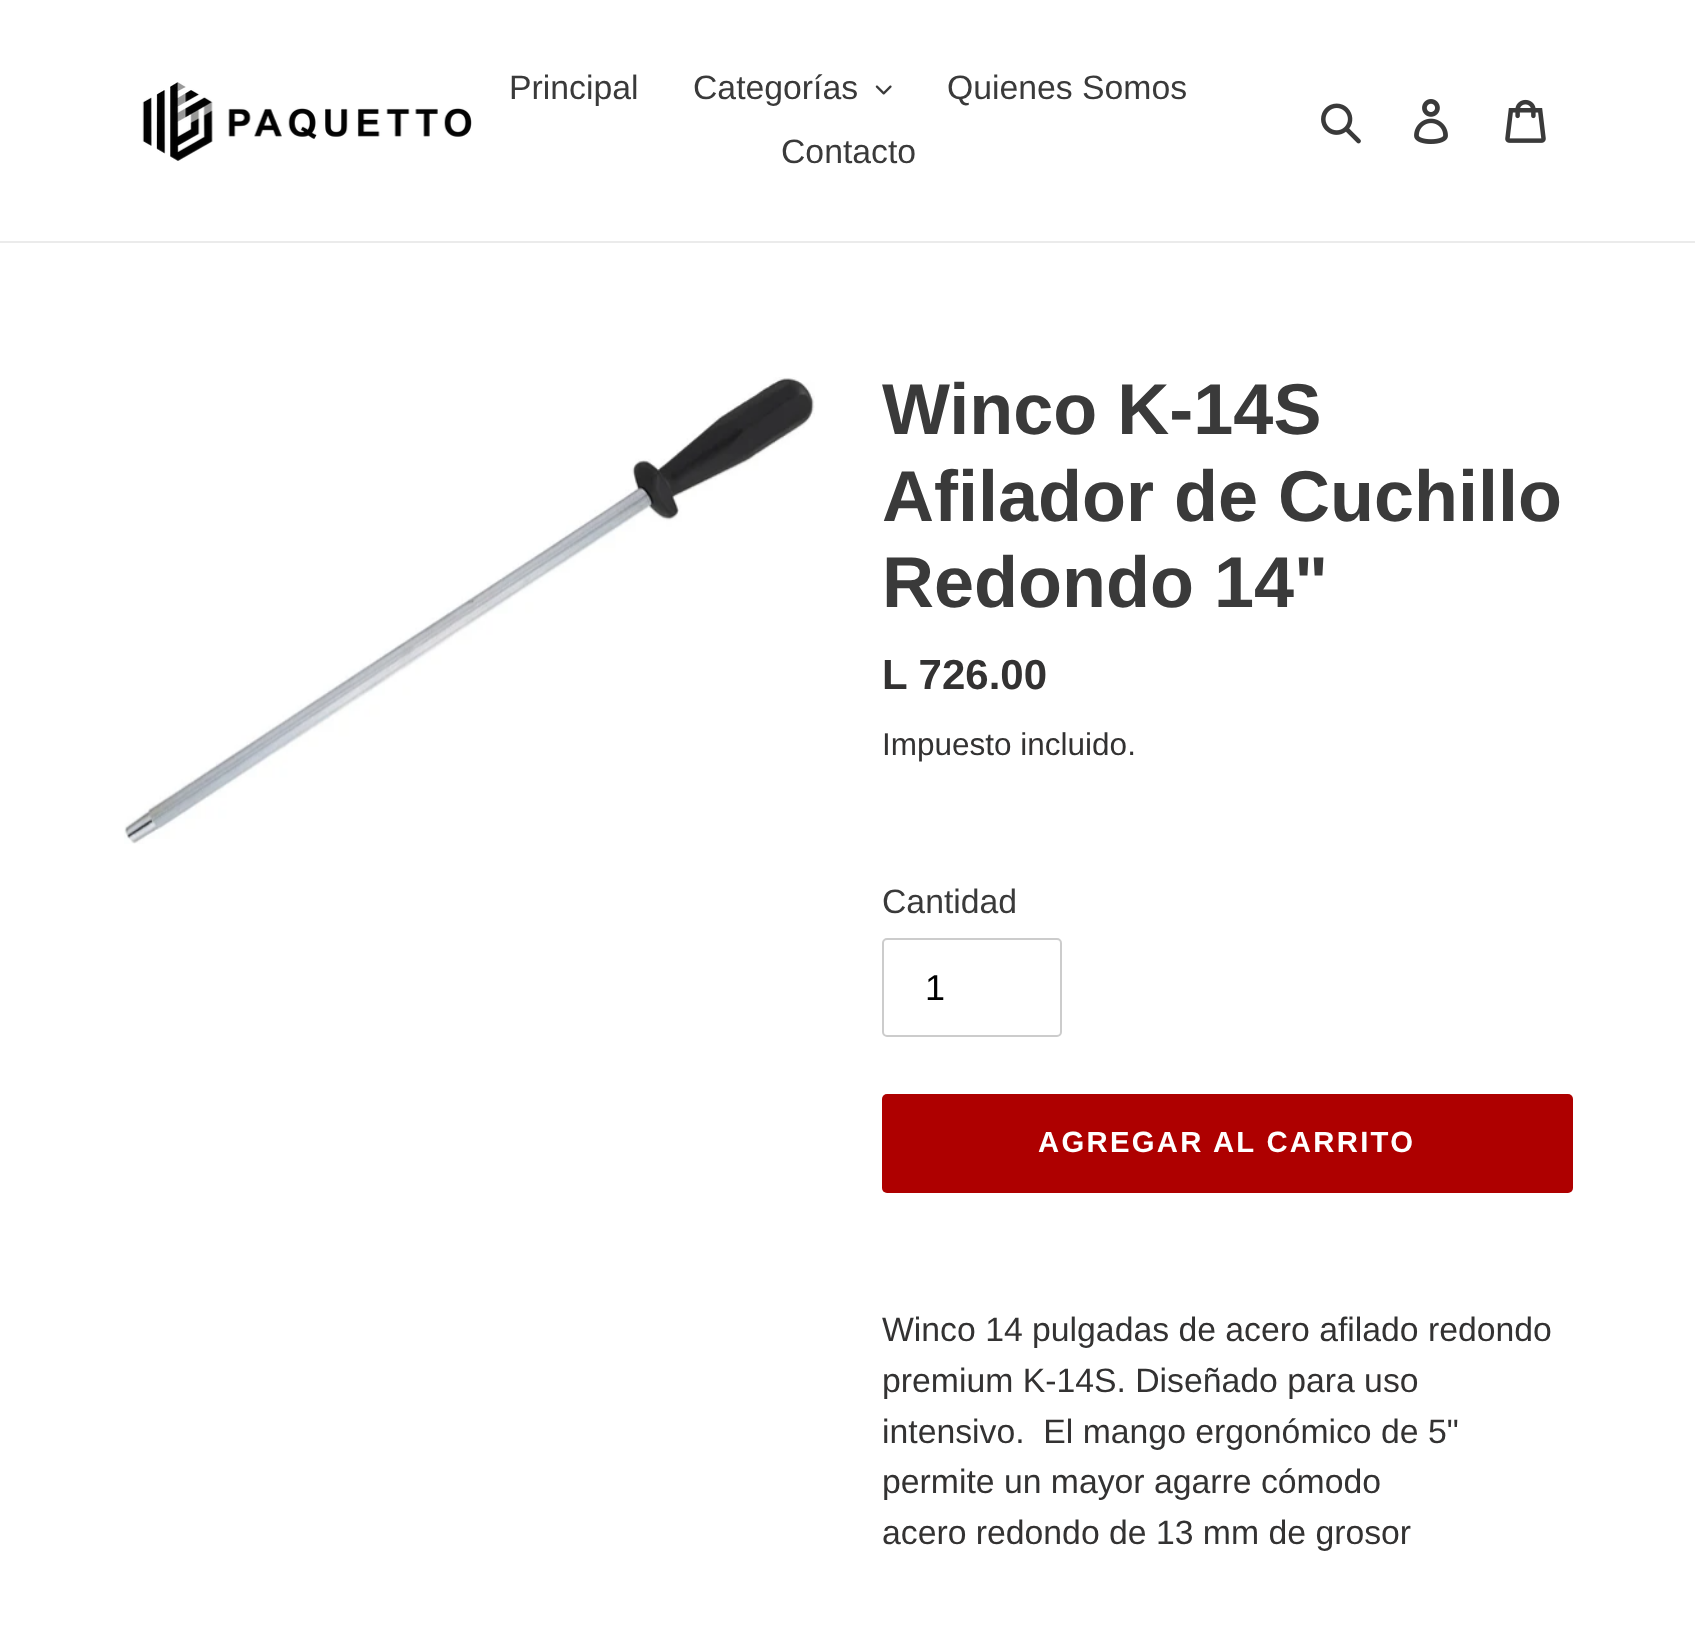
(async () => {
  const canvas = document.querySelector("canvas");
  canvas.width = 1695;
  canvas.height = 1635;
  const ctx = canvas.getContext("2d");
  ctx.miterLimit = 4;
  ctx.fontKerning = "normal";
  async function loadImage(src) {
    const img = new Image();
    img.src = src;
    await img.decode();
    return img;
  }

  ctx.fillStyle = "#ffffff";
  ctx.fillRect(0, 0, 1695, 1635);
  ctx.fillStyle = "#ebebeb";
  ctx.fillRect(0, 241, 1695, 2);
  ctx.drawImage(await loadImage("img/1.png"), 142, 82, 330, 79);
  ctx.drawImage(await loadImage("img/2.png"), 875, 85, 17, 10);
  ctx.drawImage(await loadImage("img/3.png"), 1321, 103, 40, 41);
  ctx.drawImage(await loadImage("img/4.png"), 1414, 99, 34, 45);
  ctx.drawImage(await loadImage("img/5.png"), 1505, 99, 41, 44);
  ctx.drawImage(await loadImage("img/6.png"), 124, 377, 691, 467);
  ctx.beginPath();
  ctx.roundRect(883, 939, 178, 97, 4);
  ctx.strokeStyle = "#cccccc";
  ctx.lineWidth = 2;
  ctx.stroke();
  ctx.fillStyle = "#ae0000";
  ctx.beginPath();
  ctx.roundRect(882, 1094, 691, 99, 5);
  ctx.fill();
  ctx.font = "33.75px Liberation Sans";
  ctx.fillStyle = "#3a3a3a";
  for (const [text, x, y] of [
    ["Principal", 509, 99],
    ["Categorías", 693, 99],
    ["Quienes Somos", 947, 99],
    ["Contacto", 781, 163],
  ]) {
    ctx.fillText(text, x, y);
  }
  ctx.font = "bold 72px Liberation Sans";
  for (const [text, x, y] of [
    ["Winco K-14S", 882, 434],
    ["Afilador de Cuchillo", 882, 521],
    ["Redondo 14\"", 882, 607],
  ]) {
    ctx.fillText(text, x, y);
  }
  ctx.font = "bold 42px Liberation Sans";
  ctx.fillStyle = "#333232";
  ctx.fillText("L 726.00", 882, 689);
  ctx.font = "31.5px Liberation Sans";
  ctx.fillText("Impuesto incluido.", 882, 755);
  ctx.font = "33.75px Liberation Sans";
  ctx.fillStyle = "#3a3a3a";
  ctx.fillText("Cantidad", 882, 913);
  ctx.font = "36px Liberation Sans";
  ctx.fillStyle = "#000000";
  ctx.fillText("1", 925, 1000);
  ctx.letterSpacing = "2.3px";
  ctx.font = "bold 29.25px Liberation Sans";
  ctx.fillStyle = "#ffffff";
  ctx.fillText("AGREGAR AL CARRITO", 1038, 1152);
  ctx.letterSpacing = "0px";
  ctx.font = "33.75px Liberation Sans";
  ctx.fillStyle = "#333232";
  for (const [text, x, y] of [
    ["Winco 14 pulgadas de acero afilado redondo", 882, 1341],
    ["premium K-14S. Diseñado para uso", 882, 1392],
    ["intensivo.  El mango ergonómico de 5\"", 882, 1443],
    ["permite un mayor agarre cómodo", 882, 1493],
    ["acero redondo de 13 mm de grosor", 882, 1544],
  ]) {
    ctx.fillText(text, x, y);
  }
})();
